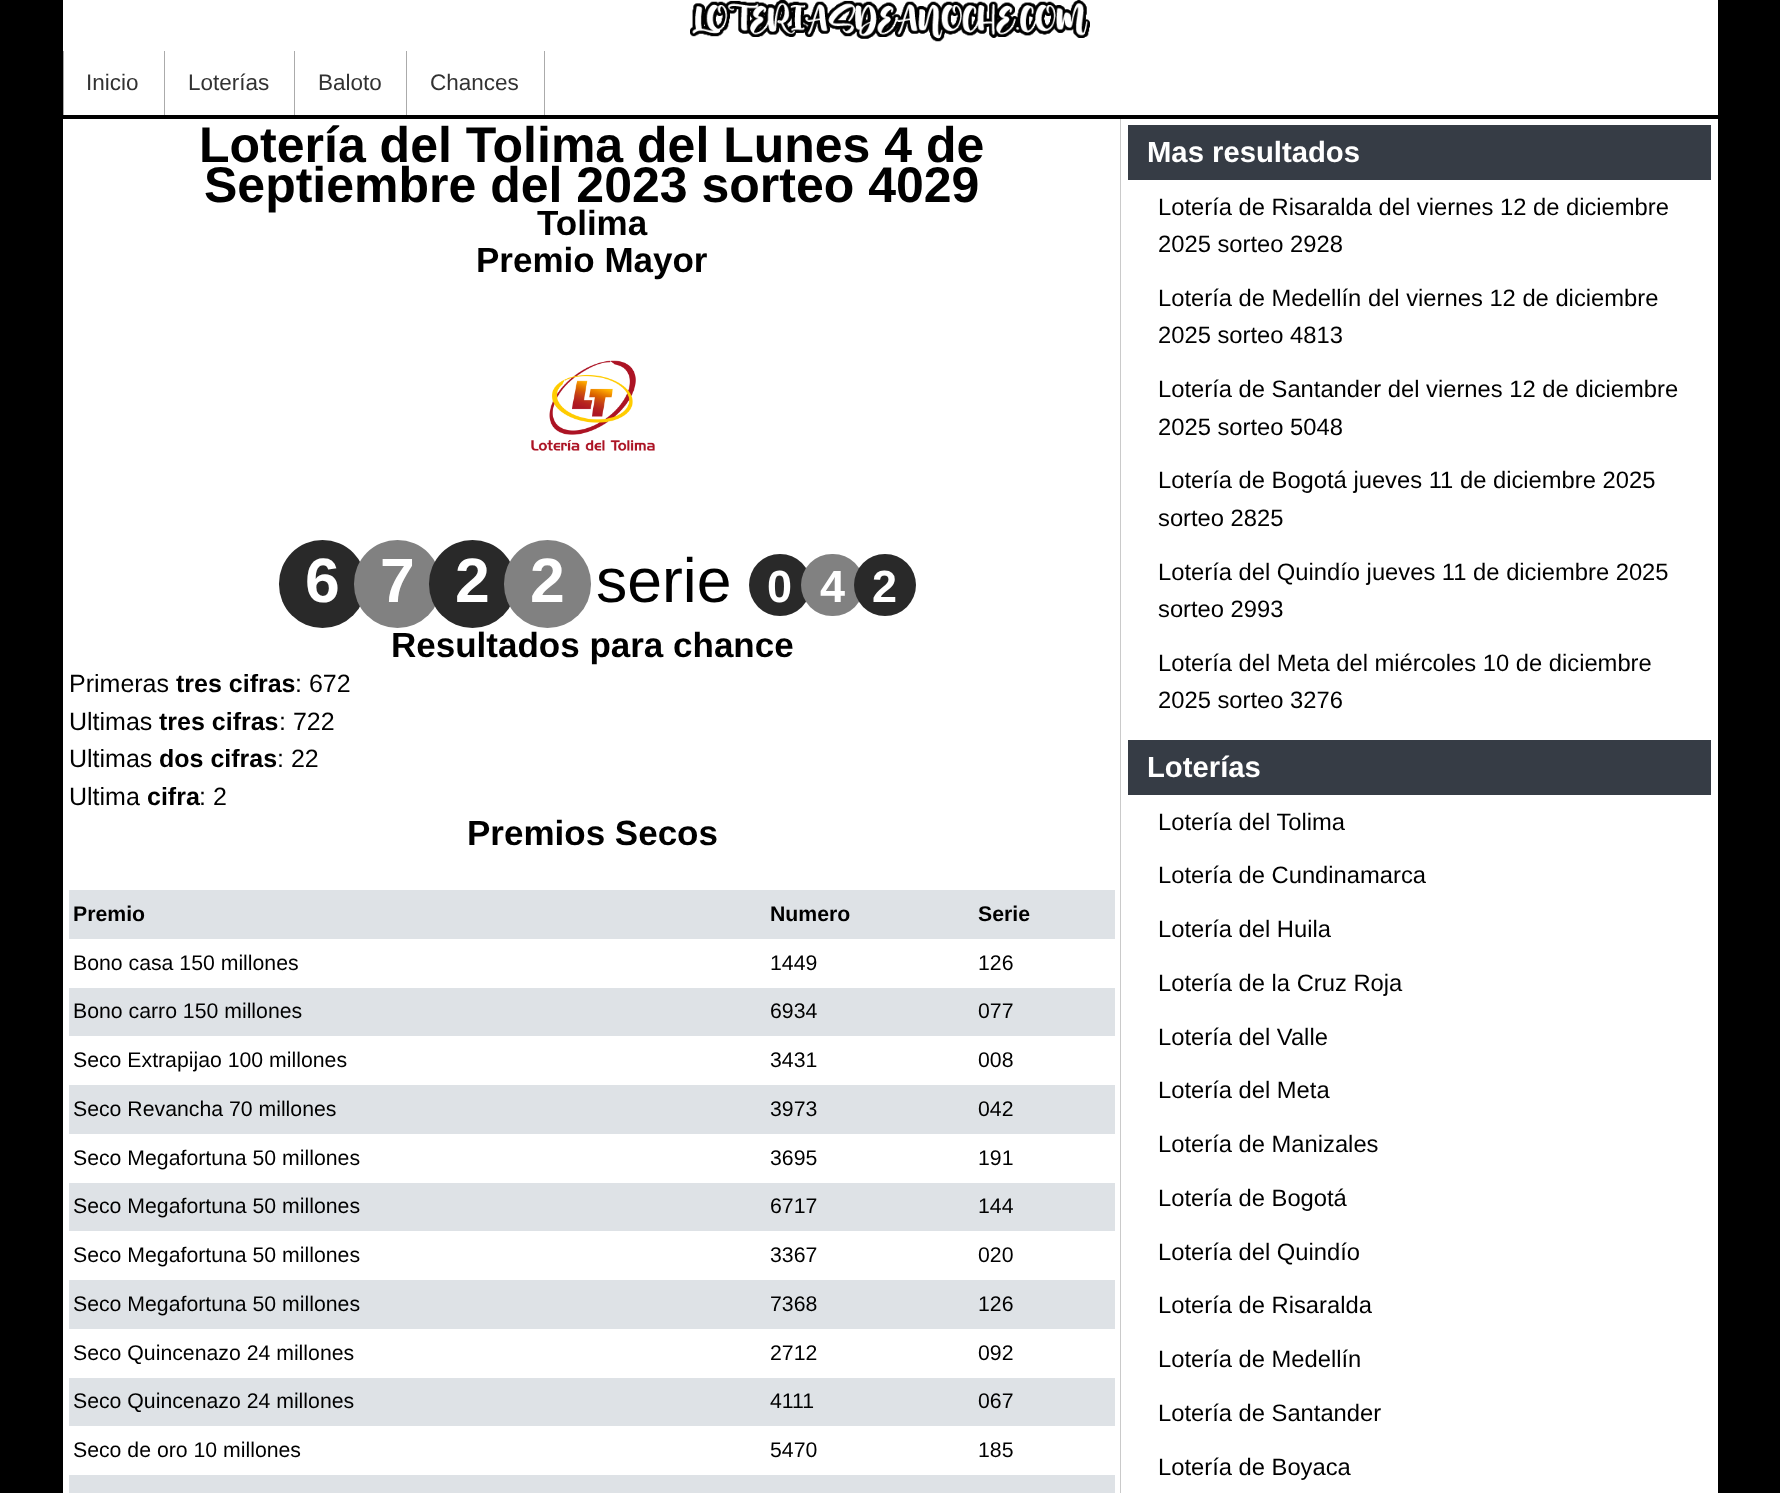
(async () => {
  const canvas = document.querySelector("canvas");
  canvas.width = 1780;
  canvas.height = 1493;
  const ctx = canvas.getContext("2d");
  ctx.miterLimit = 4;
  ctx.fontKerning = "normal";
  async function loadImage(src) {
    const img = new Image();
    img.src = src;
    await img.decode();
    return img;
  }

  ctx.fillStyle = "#000000";
  ctx.fillRect(0, 0, 1780, 1493);
  ctx.fillStyle = "#ffffff";
  ctx.fillRect(63, 0, 1655, 115);
  ctx.drawImage(await loadImage("img/1.png"), 690, 0, 400, 42);
  for (const [x, y, w, h, color] of [
    [164, 51, 1, 64, "#ababab"],
    [63, 51, 1, 64, "#ababab"],
    [294, 51, 1, 64, "#ababab"],
    [406, 51, 1, 64, "#ababab"],
    [544, 51, 1, 64, "#ababab"],
    [63, 119, 1655, 1374, "#ffffff"],
  ]) {
    ctx.fillStyle = color;
    ctx.fillRect(x, y, w, h);
  }
  ctx.drawImage(await loadImage("img/2.png"), 531, 360, 124, 91);
  ctx.fillStyle = "#292929";
  ctx.beginPath();
  ctx.roundRect(279, 540, 87, 88, 43.5);
  ctx.fill();
  ctx.fillStyle = "#818181";
  ctx.beginPath();
  ctx.roundRect(354, 540, 87, 88, 43.5);
  ctx.fill();
  ctx.fillStyle = "#292929";
  ctx.beginPath();
  ctx.roundRect(429, 540, 87, 88, 43.5);
  ctx.fill();
  ctx.fillStyle = "#818181";
  ctx.beginPath();
  ctx.roundRect(504, 540, 87, 88, 43.5);
  ctx.fill();
  ctx.fillStyle = "#292929";
  ctx.beginPath();
  ctx.arc(780, 585, 31, 0, Math.PI * 2);
  ctx.fill();
  ctx.fillStyle = "#818181";
  ctx.beginPath();
  ctx.roundRect(801, 554, 63, 62, 31);
  ctx.fill();
  ctx.fillStyle = "#292929";
  ctx.beginPath();
  ctx.arc(885, 585, 31, 0, Math.PI * 2);
  ctx.fill();
  for (const [x, y, w, h, color] of [
    [69, 890, 1046, 49, "#dee2e6"],
    [69, 988, 1046, 48, "#dee2e6"],
    [69, 1085, 1046, 49, "#dee2e6"],
    [69, 1183, 1046, 48, "#dee2e6"],
    [69, 1280, 1046, 49, "#dee2e6"],
    [69, 1378, 1046, 48, "#dee2e6"],
    [69, 1475, 1046, 18, "#dee2e6"],
    [1120, 119, 1, 1374, "#cacaca"],
    [1128, 125, 583, 55, "#363c45"],
    [1128, 740, 583, 55, "#363c45"],
  ]) {
    ctx.fillStyle = color;
    ctx.fillRect(x, y, w, h);
  }
  ctx.font = "22.5px Liberation Sans";
  ctx.fillStyle = "#323232";
  for (const [text, x, y] of [
    ["Inicio", 86, 90],
    ["Loterías", 188, 90],
    ["Baloto", 318, 90],
    ["Chances", 430, 90],
  ]) {
    ctx.fillText(text, x, y);
  }
  ctx.font = "bold 50px Liberation Sans";
  ctx.fillStyle = "#000000";
  ctx.fillText("Lotería del Tolima del Lunes 4 de", 199, 162);
  ctx.fillText("Septiembre del 2023 sorteo 4029", 204, 202);
  ctx.font = "bold 35px Liberation Sans";
  ctx.fillText("Tolima", 537, 235);
  ctx.fillText("Premio Mayor", 476, 272);
  ctx.font = "bold 62.5px Liberation Sans";
  ctx.fillStyle = "#ffffff";
  for (const [text, x, y] of [
    ["6", 305, 602],
    ["7", 380, 602],
    ["2", 455, 602],
    ["2", 530, 602],
  ]) {
    ctx.fillText(text, x, y);
  }
  ctx.font = "62.5px Liberation Sans";
  ctx.fillStyle = "#000000";
  ctx.fillText("serie", 596, 602);
  ctx.font = "bold 45px Liberation Sans";
  ctx.fillStyle = "#ffffff";
  for (const [text, x, y] of [
    ["0", 767, 602],
    ["4", 820, 602],
    ["2", 872, 602],
  ]) {
    ctx.fillText(text, x, y);
  }
  ctx.font = "bold 35px Liberation Sans";
  ctx.fillStyle = "#000000";
  ctx.fillText("Resultados para chance", 391, 657);
  ctx.font = "25px Liberation Sans";
  ctx.fillText("Primeras", 69, 692);
  ctx.font = "bold 25px Liberation Sans";
  ctx.fillText("tres cifras", 176, 692);
  ctx.font = "25px Liberation Sans";
  ctx.fillText(": 672", 295, 692);
  ctx.fillText("Ultimas", 69, 730);
  ctx.font = "bold 25px Liberation Sans";
  ctx.fillText("tres cifras", 159, 730);
  ctx.font = "25px Liberation Sans";
  ctx.fillText(": 722", 279, 730);
  ctx.fillText("Ultimas", 69, 767);
  ctx.font = "bold 25px Liberation Sans";
  ctx.fillText("dos cifras", 159, 767);
  ctx.font = "25px Liberation Sans";
  ctx.fillText(": 22", 277, 767);
  ctx.fillText("Ultima", 69, 805);
  ctx.font = "bold 25px Liberation Sans";
  ctx.fillText("cifra", 147, 805);
  ctx.font = "25px Liberation Sans";
  ctx.fillText(": 2", 199, 805);
  ctx.font = "bold 35px Liberation Sans";
  ctx.fillText("Premios Secos", 467, 845);
  ctx.font = "bold 21.25px Liberation Sans";
  for (const [text, x, y] of [
    ["Premio", 73, 921],
    ["Numero", 770, 921],
    ["Serie", 978, 921],
  ]) {
    ctx.fillText(text, x, y);
  }
  ctx.font = "21.25px Liberation Sans";
  for (const [text, x, y] of [
    ["Bono casa 150 millones", 73, 970],
    ["1449", 770, 970],
    ["126", 978, 970],
    ["Bono carro 150 millones", 73, 1018],
    ["6934", 770, 1018],
    ["077", 978, 1018],
    ["Seco Extrapijao 100 millones", 73, 1067],
    ["3431", 770, 1067],
    ["008", 978, 1067],
    ["Seco Revancha 70 millones", 73, 1116],
    ["3973", 770, 1116],
    ["042", 978, 1116],
    ["Seco Megafortuna 50 millones", 73, 1165],
    ["3695", 770, 1165],
    ["191", 978, 1165],
    ["Seco Megafortuna 50 millones", 73, 1213],
    ["6717", 770, 1213],
    ["144", 978, 1213],
    ["Seco Megafortuna 50 millones", 73, 1262],
    ["3367", 770, 1262],
    ["020", 978, 1262],
    ["Seco Megafortuna 50 millones", 73, 1311],
    ["7368", 770, 1311],
    ["126", 978, 1311],
    ["Seco Quincenazo 24 millones", 73, 1360],
    ["2712", 770, 1360],
    ["092", 978, 1360],
    ["Seco Quincenazo 24 millones", 73, 1408],
    ["4111", 770, 1408],
    ["067", 978, 1408],
    ["Seco de oro 10 millones", 73, 1457],
    ["5470", 770, 1457],
    ["185", 978, 1457],
  ]) {
    ctx.fillText(text, x, y);
  }
  ctx.font = "bold 29.25px Liberation Sans";
  ctx.fillStyle = "#ffffff";
  ctx.fillText("Mas resultados", 1147, 162);
  ctx.font = "23.75px Liberation Sans";
  ctx.fillStyle = "#000000";
  for (const [text, x, y] of [
    ["Lotería de Risaralda del viernes 12 de diciembre", 1158, 215],
    ["2025 sorteo 2928", 1158, 252],
    ["Lotería de Medellín del viernes 12 de diciembre", 1158, 306],
    ["2025 sorteo 4813", 1158, 343],
    ["Lotería de Santander del viernes 12 de diciembre", 1158, 397],
    ["2025 sorteo 5048", 1158, 435],
    ["Lotería de Bogotá jueves 11 de diciembre 2025", 1158, 488],
    ["sorteo 2825", 1158, 526],
    ["Lotería del Quindío jueves 11 de diciembre 2025", 1158, 580],
    ["sorteo 2993", 1158, 617],
    ["Lotería del Meta del miércoles 10 de diciembre", 1158, 671],
    ["2025 sorteo 3276", 1158, 708],
  ]) {
    ctx.fillText(text, x, y);
  }
  ctx.font = "bold 29.25px Liberation Sans";
  ctx.fillStyle = "#ffffff";
  ctx.fillText("Loterías", 1147, 777);
  ctx.font = "23.75px Liberation Sans";
  ctx.fillStyle = "#000000";
  for (const [text, x, y] of [
    ["Lotería del Tolima", 1158, 830],
    ["Lotería de Cundinamarca", 1158, 883],
    ["Lotería del Huila", 1158, 937],
    ["Lotería de la Cruz Roja", 1158, 991],
    ["Lotería del Valle", 1158, 1045],
    ["Lotería del Meta", 1158, 1098],
    ["Lotería de Manizales", 1158, 1152],
    ["Lotería de Bogotá", 1158, 1206],
    ["Lotería del Quindío", 1158, 1260],
    ["Lotería de Risaralda", 1158, 1313],
    ["Lotería de Medellín", 1158, 1367],
    ["Lotería de Santander", 1158, 1421],
    ["Lotería de Boyaca", 1158, 1475],
  ]) {
    ctx.fillText(text, x, y);
  }
})();
